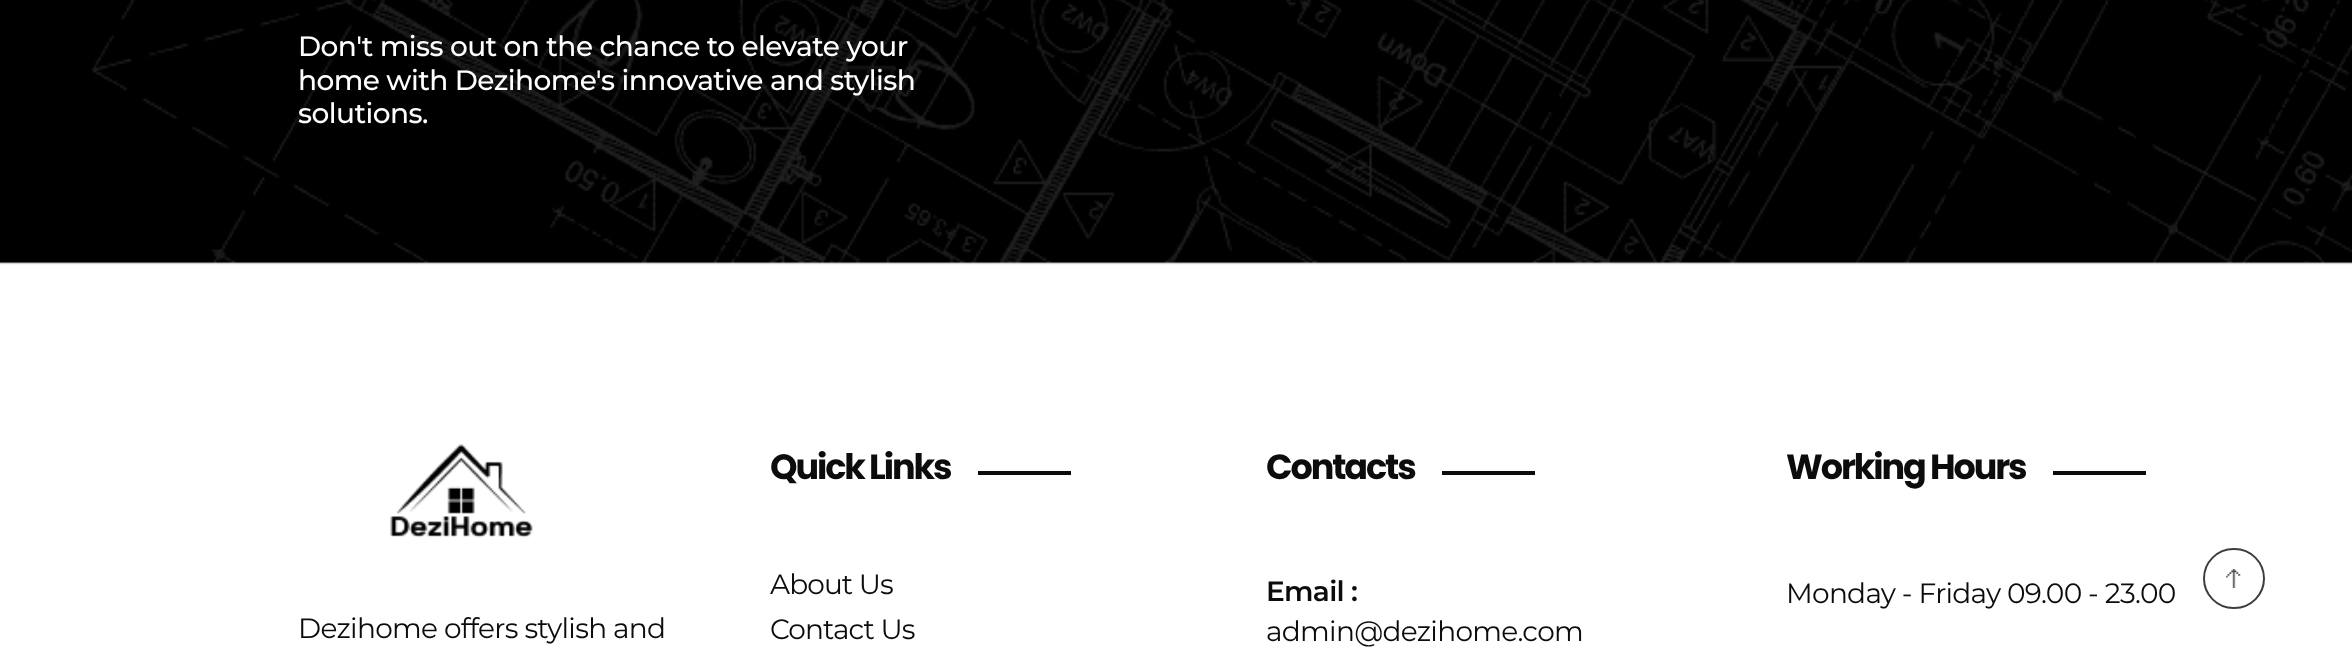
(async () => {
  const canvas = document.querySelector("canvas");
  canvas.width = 2352;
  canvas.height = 660;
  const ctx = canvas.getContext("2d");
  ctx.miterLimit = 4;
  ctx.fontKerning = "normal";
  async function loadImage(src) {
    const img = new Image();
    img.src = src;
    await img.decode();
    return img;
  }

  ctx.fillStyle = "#ffffff";
  ctx.fillRect(0, 0, 2352, 660);
  ctx.drawImage(await loadImage("img/1.png"), 0, 0, 2352, 265);
  ctx.drawImage(await loadImage("img/2.png"), 390, 444, 143, 94);
  for (const [x, y, w, h, color] of [
    [978, 471, 93, 4, "#0c0c0c"],
    [1442, 471, 93, 4, "#0c0c0c"],
    [2053, 471, 93, 4, "#0c0c0c"],
  ]) {
    ctx.fillStyle = color;
    ctx.fillRect(x, y, w, h);
  }
  ctx.beginPath();
  ctx.roundRect(2204, 549, 60, 59, 29.5);
  ctx.strokeStyle = "#3d3d3d";
  ctx.lineWidth = 2;
  ctx.stroke();
  ctx.drawImage(await loadImage("img/3.png"), 2226, 569, 15, 19);
  ctx.letterSpacing = "-0.55px";
  ctx.font = "500 28px Montserrat";
  ctx.fillStyle = "#ffffff";
  for (const [text, x, y] of [
    ["Don't miss out on the chance to elevate your", 298, 56],
    ["home with Dezihome's innovative and stylish", 298, 90],
    ["solutions.", 298, 123],
  ]) {
    ctx.fillText(text, x, y);
  }
  ctx.letterSpacing = "-0.7px";
  ctx.font = "28px Montserrat";
  ctx.fillStyle = "#0c0c0c";
  ctx.fillText("Dezihome offers stylish and", 298, 638);
  ctx.letterSpacing = "-2.1px";
  ctx.font = "bold 35px Poppins";
  ctx.fillText("Quick Links", 770, 479);
  ctx.letterSpacing = "-0.9px";
  ctx.font = "28px Montserrat";
  ctx.fillText("About Us", 770, 594);
  ctx.fillText("Contact Us", 770, 639);
  ctx.letterSpacing = "-2.1px";
  ctx.font = "bold 35px Poppins";
  ctx.fillText("Contacts", 1266, 479);
  ctx.letterSpacing = "-0.7px";
  ctx.font = "600 28px Montserrat";
  ctx.fillText("Email :", 1266, 601);
  ctx.font = "28px Montserrat";
  ctx.fillText("admin@dezihome.com", 1266, 641);
  ctx.letterSpacing = "-2.1px";
  ctx.font = "bold 35px Poppins";
  ctx.fillText("Working Hours", 1786, 479);
  ctx.letterSpacing = "-0.7px";
  ctx.font = "28px Montserrat";
  ctx.fillText("Monday - Friday 09.00 - 23.00", 1786, 603);
})();
